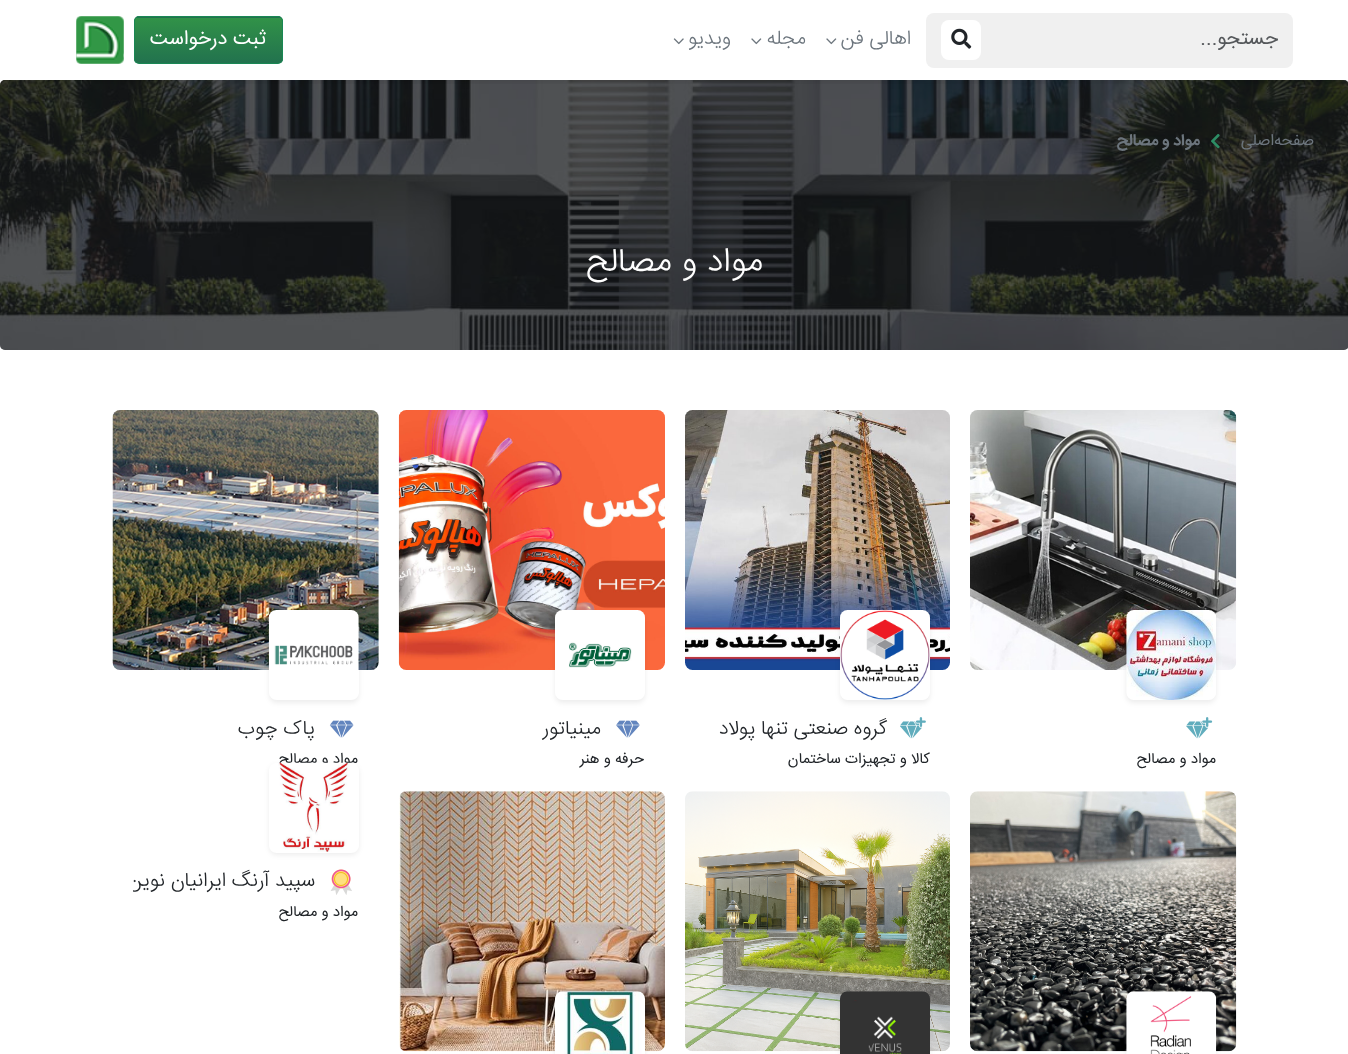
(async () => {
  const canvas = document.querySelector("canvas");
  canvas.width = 1348;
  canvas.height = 1054;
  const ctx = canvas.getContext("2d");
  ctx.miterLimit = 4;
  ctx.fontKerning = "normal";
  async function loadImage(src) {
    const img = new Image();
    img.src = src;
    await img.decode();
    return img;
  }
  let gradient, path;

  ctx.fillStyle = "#ffffff";
  ctx.fillRect(0, 0, 1348, 1054);
  ctx.drawImage(await loadImage("img/5.png"), 0, 80, 1348, 270);
  ctx.fillStyle = "rgba(33, 37, 41, 0.5)";
  ctx.beginPath();
  ctx.roundRect(0, 80, 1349, 270, 5);
  ctx.fill();
  ctx.save();
  ctx.beginPath();
  ctx.rect(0, 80, 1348, 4);
  ctx.clip();
  ctx.fillStyle = "rgba(0, 0, 0, 0.07)";
  ctx.filter = "blur(2.5px)";
  ctx.beginPath();
  ctx.rect(0, 3, 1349, 80);
  ctx.fill();
  ctx.filter = "none";
  ctx.restore();
  ctx.fillStyle = "#f0f0f0";
  ctx.beginPath();
  ctx.roundRect(995, 13, 298, 55, [0, 8, 8, 0]);
  ctx.fill();
  ctx.beginPath();
  ctx.roundRect(926, 13, 70, 55, [8, 0, 0, 8]);
  ctx.fill();
  ctx.fillStyle = "#ffffff";
  ctx.beginPath();
  ctx.roundRect(941, 20, 40, 40, 8);
  ctx.fill();
  ctx.drawImage(await loadImage("img/1.png"), 951, 28, 21, 21);
  ctx.drawImage(await loadImage("img/2.png"), 826, 38, 11, 7);
  ctx.drawImage(await loadImage("img/2.png"), 751, 38, 11, 7);
  ctx.drawImage(await loadImage("img/3.png"), 673, 38, 11, 7);
  ctx.save();
  ctx.beginPath();
  ctx.roundRect(134, 16, 149, 48, 5);
  ctx.clip();
  gradient = ctx.createLinearGradient(208, 18, 208, -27);
  gradient.addColorStop(0, "#22724e");
  gradient.addColorStop(1, "#319248");
  ctx.fillStyle = gradient;
  ctx.fillRect(134, 16, 149, 2);
  gradient = ctx.createLinearGradient(208, 63, 208, 18);
  gradient.addColorStop(0, "#22724e");
  gradient.addColorStop(1, "#319248");
  ctx.fillStyle = gradient;
  ctx.fillRect(134, 18, 149, 45);
  ctx.restore();
  ctx.beginPath();
  ctx.roundRect(134.5, 16.5, 148, 47, 4.5);
  ctx.strokeStyle = "#198754";
  ctx.stroke();
  ctx.drawImage(await loadImage("img/4.png"), 76, 16, 48, 48);
  ctx.drawImage(await loadImage("img/6.png"), 1211, 134, 9, 15);
  ctx.drawImage(await loadImage("img/7.png"), 970, 410, 267, 260);
  ctx.fillStyle = "rgba(0, 0, 0, 0.07)";
  ctx.filter = "blur(2.5px)";
  ctx.beginPath();
  ctx.roundRect(1126, 613, 90, 90, 8);
  ctx.fill();
  ctx.filter = "none";
  ctx.drawImage(await loadImage("img/8.png"), 1126, 610, 90, 90);
  ctx.drawImage(await loadImage("img/9.png"), 1186, 717, 27, 22);
  ctx.drawImage(await loadImage("img/10.png"), 685, 410, 265, 260);
  ctx.filter = "blur(2.5px)";
  ctx.beginPath();
  ctx.roundRect(840, 613, 90, 90, 8);
  ctx.fill();
  ctx.filter = "none";
  ctx.drawImage(await loadImage("img/11.png"), 840, 610, 90, 90);
  ctx.drawImage(await loadImage("img/12.png"), 900, 717, 26, 22);
  ctx.drawImage(await loadImage("img/13.png"), 398, 410, 267, 260);
  ctx.save();
  path = new Path2D("M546 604H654V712H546ZM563 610H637C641.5 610 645 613.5 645 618V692C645 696.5 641.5 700 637 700H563C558.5 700 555 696.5 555 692V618C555 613.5 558.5 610 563 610Z");
  ctx.clip(path, "evenodd");
  ctx.filter = "blur(2.5px)";
  ctx.beginPath();
  ctx.roundRect(555, 613, 90, 90, 8);
  ctx.fill();
  ctx.filter = "none";
  ctx.restore();
  ctx.drawImage(await loadImage("img/14.png"), 555, 610, 90, 60);
  ctx.drawImage(await loadImage("img/15.png"), 616, 720, 24, 18);
  ctx.drawImage(await loadImage("img/16.png"), 112, 410, 267, 260);
  ctx.save();
  path = new Path2D("M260 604H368V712H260ZM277 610H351C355.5 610 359 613.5 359 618V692C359 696.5 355.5 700 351 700H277C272.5 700 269 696.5 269 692V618C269 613.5 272.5 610 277 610Z");
  ctx.clip(path, "evenodd");
  ctx.filter = "blur(2.5px)";
  ctx.beginPath();
  ctx.roundRect(269, 613, 90, 90, 8);
  ctx.fill();
  ctx.filter = "none";
  ctx.restore();
  ctx.drawImage(await loadImage("img/17.png"), 268, 610, 91, 60);
  ctx.drawImage(await loadImage("img/18.png"), 329, 720, 25, 18);
  ctx.drawImage(await loadImage("img/19.png"), 970, 791, 267, 261);
  ctx.filter = "blur(2.5px)";
  ctx.beginPath();
  ctx.roundRect(1126, 994, 90, 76, 8);
  ctx.fill();
  ctx.filter = "none";
  ctx.drawImage(await loadImage("img/20.png"), 1126, 991, 91, 63);
  ctx.drawImage(await loadImage("img/21.png"), 685, 791, 265, 261);
  ctx.filter = "blur(2.5px)";
  ctx.beginPath();
  ctx.roundRect(840, 994, 90, 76, 8);
  ctx.fill();
  ctx.filter = "none";
  ctx.drawImage(await loadImage("img/22.png"), 840, 991, 90, 63);
  ctx.drawImage(await loadImage("img/23.png"), 399, 791, 266, 261);
  ctx.filter = "blur(2.5px)";
  ctx.beginPath();
  ctx.roundRect(555, 994, 90, 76, 8);
  ctx.fill();
  ctx.filter = "none";
  ctx.drawImage(await loadImage("img/24.png"), 555, 991, 90, 63);
  ctx.save();
  path = new Path2D("M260 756H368V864H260ZM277 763H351C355.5 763 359 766.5 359 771V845C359 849.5 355.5 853 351 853H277C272.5 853 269 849.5 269 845V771C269 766.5 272.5 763 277 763Z");
  ctx.clip(path, "evenodd");
  ctx.filter = "blur(2.5px)";
  ctx.beginPath();
  ctx.roundRect(269, 765, 90, 90, 8);
  ctx.fill();
  ctx.filter = "none";
  ctx.restore();
  ctx.drawImage(await loadImage("img/26.png"), 330, 869, 22, 26);
  ctx.direction = "rtl";
  ctx.font = "20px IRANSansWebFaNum";
  ctx.fillStyle = "#55585b";
  ctx.fillText("جستجو...", 1278, 44);
  ctx.font = "300 20px IRANSansWebFaNum";
  ctx.fillStyle = "#6c757d";
  for (const [text, x, y] of [
    ["اهالی فن", 911, 44],
    ["مجله", 806, 44],
    ["ویدیو", 731, 44],
  ]) {
    ctx.fillText(text, x, y);
  }
  ctx.font = "20px IRANSansWebFaNum";
  ctx.fillStyle = "#ffffff";
  ctx.fillText("ثبت درخواست", 266, 44);
  ctx.font = "16px IRANSansWebFaNum";
  ctx.fillStyle = "#6c757d";
  ctx.fillText("صفحه‌اصلی", 1314, 145);
  ctx.font = "bold 16px IRANSansWebFaNum";
  ctx.fillText("مواد و مصالح", 1200, 145);
  ctx.font = "300 34px IRANSansWebFaNum";
  ctx.fillStyle = "#ffffff";
  ctx.fillText("مواد و مصالح", 763, 271);
  ctx.font = "15px IRANSansWebFaNum";
  ctx.fillStyle = "#212529";
  ctx.fillText("مواد و مصالح", 1216, 763);
  ctx.font = "300 20px IRANSansWebFaNum";
  ctx.fillText("گروه صنعتی تنها پولاد", 887, 734);
  ctx.font = "15px IRANSansWebFaNum";
  ctx.fillText("کالا و تجهیزات ساختمان", 930, 763);
  ctx.font = "300 20px IRANSansWebFaNum";
  ctx.fillText("مینیاتور", 601, 734);
  ctx.font = "15px IRANSansWebFaNum";
  ctx.fillText("حرفه و هنر", 644, 763);
  ctx.font = "300 20px IRANSansWebFaNum";
  ctx.fillText("پاک چوب", 315, 734);
  ctx.font = "15px IRANSansWebFaNum";
  ctx.fillText("مواد و مصالح", 358, 763);
  ctx.drawImage(await loadImage("img/25.png"), 278, 762, 75, 90);
  ctx.save();
  ctx.beginPath();
  ctx.rect(133, 863, 226, 38);
  ctx.clip();
  ctx.font = "300 20px IRANSansWebFaNum";
  ctx.fillText("سپید آرنگ ایرانیان نوین", 315, 886);
  ctx.restore();
  ctx.fillText("مواد و مصالح", 358, 916);
})();
